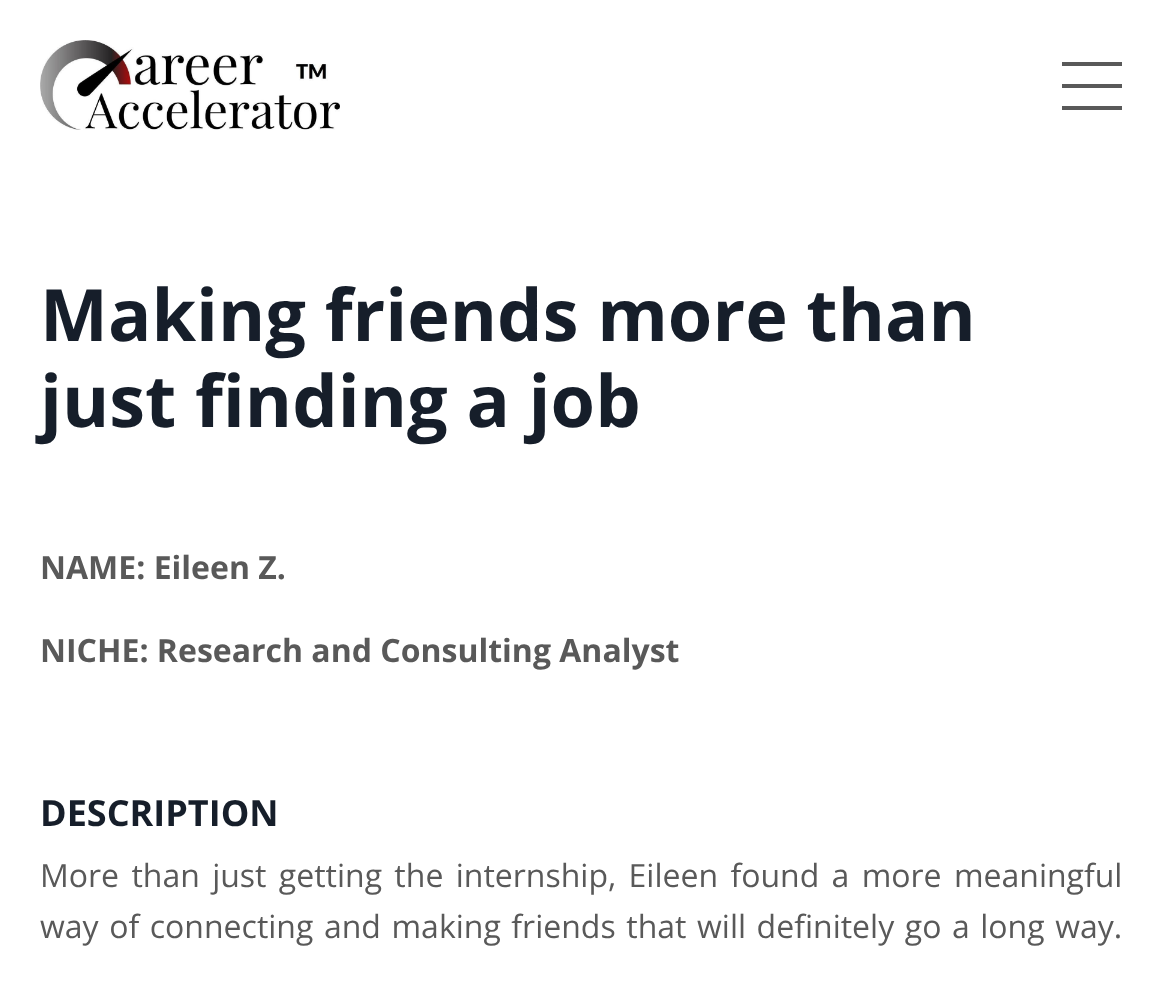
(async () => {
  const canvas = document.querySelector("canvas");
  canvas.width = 1161;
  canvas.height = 982;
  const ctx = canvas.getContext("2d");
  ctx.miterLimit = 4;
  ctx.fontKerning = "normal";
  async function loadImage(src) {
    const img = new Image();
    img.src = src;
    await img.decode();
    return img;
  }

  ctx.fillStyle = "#ffffff";
  ctx.fillRect(0, 0, 1161, 982);
  ctx.drawImage(await loadImage("img/1.png"), 40, 40, 300, 90);
  for (const [x, y, w, h, color] of [
    [1062, 62, 60, 4, "#595959"],
    [1062, 84, 60, 4, "#595959"],
    [1062, 106, 60, 4, "#595959"],
  ]) {
    ctx.fillStyle = color;
    ctx.fillRect(x, y, w, h);
  }
  ctx.font = "bold 72px Open Sans";
  ctx.fillStyle = "#161e2a";
  ctx.fillText("Making friends more than", 40, 341);
  ctx.fillText("just finding a job", 40, 427);
  ctx.font = "bold 32px Open Sans";
  ctx.fillStyle = "#595959";
  ctx.fillText("NAME: Eileen Z.", 40, 579);
  ctx.fillText("NICHE: Research and Consulting Analyst", 40, 662);
  ctx.font = "bold 36px Open Sans";
  ctx.fillStyle = "#161e2a";
  ctx.fillText("DESCRIPTION", 40, 826);
  ctx.wordSpacing = "4px";
  ctx.font = "32px Open Sans";
  ctx.fillStyle = "#595959";
  ctx.fillText("More than just getting the internship, Eileen found a more meaningful", 40, 887);
  ctx.wordSpacing = "2.25px";
  ctx.fillText("way of connecting and making friends that will definitely go a long way.", 40, 938);
})();
